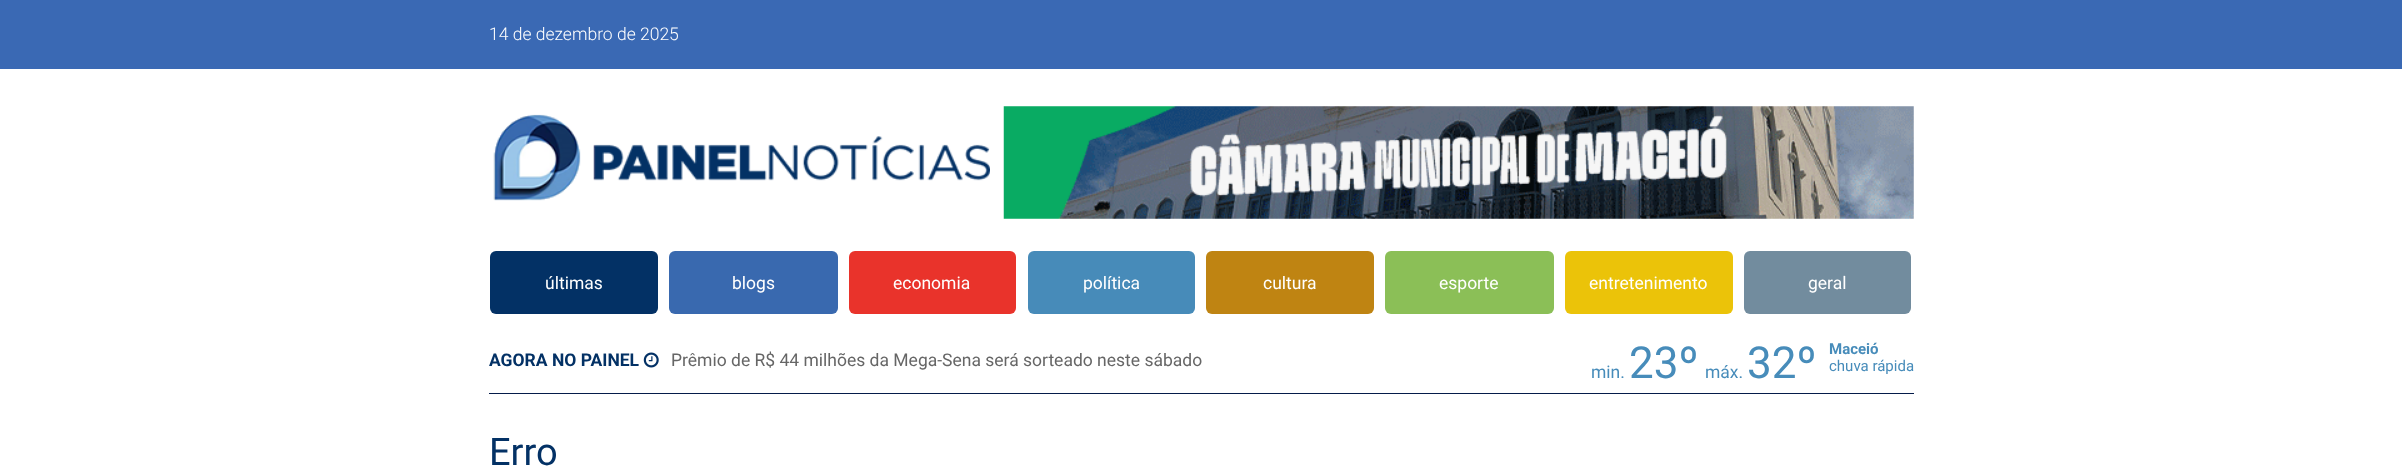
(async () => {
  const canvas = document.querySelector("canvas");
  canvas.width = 2402;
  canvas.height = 468;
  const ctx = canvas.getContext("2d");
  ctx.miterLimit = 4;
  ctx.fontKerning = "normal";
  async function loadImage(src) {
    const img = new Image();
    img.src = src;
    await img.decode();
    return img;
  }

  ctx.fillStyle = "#ffffff";
  ctx.fillRect(0, 0, 2402, 468);
  ctx.fillStyle = "#3a69b4";
  ctx.fillRect(0, 0, 2402, 69);
  ctx.drawImage(await loadImage("img/1.png"), 493, 114, 497, 87);
  ctx.drawImage(await loadImage("img/2.png"), 1003, 106, 911, 113);
  ctx.fillStyle = "#033165";
  ctx.beginPath();
  ctx.roundRect(490, 251, 168, 63, 6);
  ctx.fill();
  ctx.fillStyle = "#3969af";
  ctx.beginPath();
  ctx.roundRect(669, 251, 169, 63, 6);
  ctx.fill();
  ctx.fillStyle = "#e9332b";
  ctx.beginPath();
  ctx.roundRect(849, 251, 167, 63, 6);
  ctx.fill();
  ctx.fillStyle = "#478bb9";
  ctx.beginPath();
  ctx.roundRect(1028, 251, 167, 63, 6);
  ctx.fill();
  ctx.fillStyle = "#bf8412";
  ctx.beginPath();
  ctx.roundRect(1206, 251, 168, 63, 6);
  ctx.fill();
  ctx.fillStyle = "#8bbf57";
  ctx.beginPath();
  ctx.roundRect(1385, 251, 169, 63, 6);
  ctx.fill();
  ctx.fillStyle = "#ebc309";
  ctx.beginPath();
  ctx.roundRect(1565, 251, 168, 63, 6);
  ctx.fill();
  ctx.fillStyle = "#728c9e";
  ctx.beginPath();
  ctx.roundRect(1744, 251, 167, 63, 6);
  ctx.fill();
  ctx.fillStyle = "#051b4a";
  ctx.fillRect(489, 393, 1425, 1);
  ctx.drawImage(await loadImage("img/3.png"), 643, 352, 16, 16);
  ctx.font = "300 17.5px Roboto";
  ctx.fillStyle = "#ffffff";
  ctx.fillText("14 de dezembro de 2025", 489, 40);
  ctx.font = "17.5px Roboto";
  for (const [text, x, y] of [
    ["últimas", 545, 289],
    ["blogs", 732, 289],
    ["economia", 893, 289],
    ["política", 1083, 289],
    ["cultura", 1263, 289],
    ["esporte", 1439, 289],
    ["entretenimento", 1589, 289],
    ["geral", 1808, 289],
  ]) {
    ctx.fillText(text, x, y);
  }
  ctx.font = "bold 17.5px Roboto";
  ctx.fillStyle = "#033165";
  ctx.fillText("AGORA NO PAINEL", 489, 366);
  ctx.font = "17.5px Roboto";
  ctx.fillStyle = "#666666";
  ctx.fillText("Prêmio de R$ 44 milhões da Mega-Sena será sorteado neste sábado", 671, 366);
  ctx.fillStyle = "#478cba";
  ctx.fillText("min.", 1591, 378);
  ctx.font = "44px Roboto";
  ctx.fillText("23º", 1629, 378);
  ctx.font = "17.5px Roboto";
  ctx.fillText("máx.", 1705, 378);
  ctx.font = "44px Roboto";
  ctx.fillText("32º", 1747, 378);
  ctx.font = "bold 15px Roboto";
  ctx.fillText("Maceió", 1829, 354);
  ctx.font = "15px Roboto";
  ctx.fillText("chuva rápida", 1829, 371);
  ctx.font = "38px Roboto";
  ctx.fillStyle = "#033165";
  ctx.fillText("Erro", 489, 465);
})();
